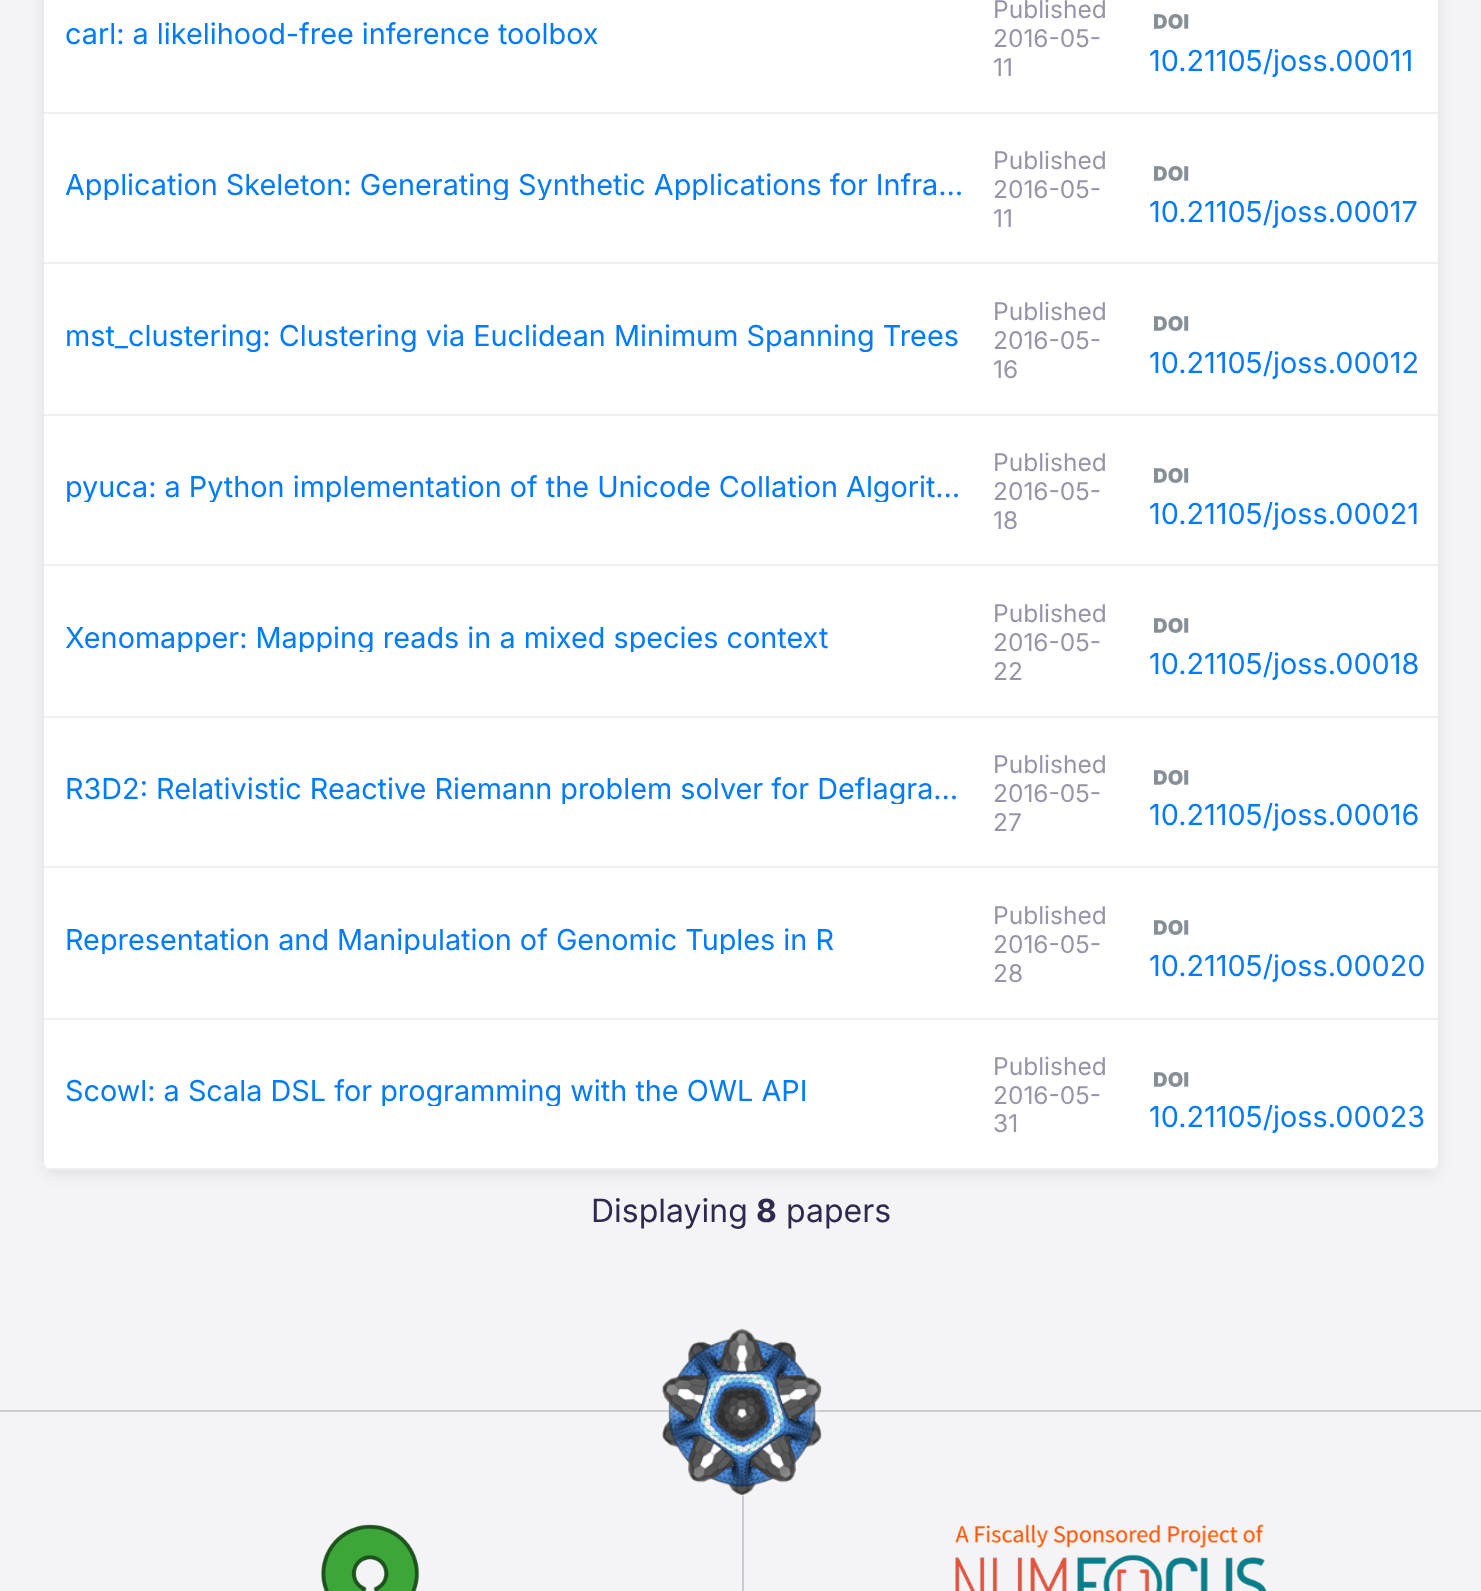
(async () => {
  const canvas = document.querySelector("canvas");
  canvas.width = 1481;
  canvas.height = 1591;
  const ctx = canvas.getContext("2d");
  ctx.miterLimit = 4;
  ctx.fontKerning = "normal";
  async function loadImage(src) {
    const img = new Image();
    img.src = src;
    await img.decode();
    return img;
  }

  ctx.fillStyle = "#f4f4f6";
  ctx.fillRect(0, 0, 1481, 1591);
  ctx.fillStyle = "rgba(46, 41, 78, 0.1)";
  ctx.filter = "blur(8px)";
  ctx.beginPath();
  ctx.roundRect(44, -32, 1394, 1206, 8);
  ctx.fill();
  ctx.filter = "none";
  ctx.fillStyle = "#ffffff";
  ctx.beginPath();
  ctx.roundRect(44, -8, 1394, 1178, 8);
  ctx.fill();
  ctx.fillStyle = "#efefef";
  ctx.fillRect(44, 112, 1394, 2);
  ctx.drawImage(await loadImage("img/1.png"), 1154, 14, 35, 15);
  ctx.fillRect(44, 262, 1394, 2);
  ctx.drawImage(await loadImage("img/1.png"), 1154, 166, 35, 15);
  ctx.fillRect(44, 414, 1394, 2);
  ctx.drawImage(await loadImage("img/1.png"), 1154, 316, 35, 15);
  ctx.fillRect(44, 564, 1394, 2);
  ctx.drawImage(await loadImage("img/1.png"), 1154, 468, 35, 15);
  ctx.fillRect(44, 716, 1394, 2);
  ctx.drawImage(await loadImage("img/1.png"), 1154, 618, 35, 15);
  ctx.fillRect(44, 866, 1394, 2);
  ctx.drawImage(await loadImage("img/1.png"), 1154, 770, 35, 15);
  ctx.fillRect(44, 1018, 1394, 2);
  ctx.drawImage(await loadImage("img/1.png"), 1154, 920, 35, 15);
  ctx.fillRect(44, 1168, 1394, 2);
  ctx.drawImage(await loadImage("img/1.png"), 1154, 1072, 35, 15);
  ctx.fillStyle = "#cccbd4";
  ctx.fillRect(0, 1410, 1481, 2);
  ctx.fillRect(742, 1481, 2, 110);
  ctx.drawImage(await loadImage("img/2.png"), 662, 1328, 160, 168);
  ctx.drawImage(await loadImage("img/3.png"), 321, 1524, 99, 67);
  ctx.drawImage(await loadImage("img/4.png"), 955, 1524, 312, 67);
  ctx.font = "28.8px Inter";
  ctx.fillStyle = "#007bff";
  ctx.fillText("carl: a likelihood-free inference toolbox", 65, 44);
  ctx.font = "24.5px Inter";
  ctx.fillStyle = "#9794a7";
  for (const [text, x, y] of [
    ["Published", 993, 18],
    ["2016-05-", 993, 47],
    ["11", 993, 76],
  ]) {
    ctx.fillText(text, x, y);
  }
  ctx.font = "28.8px Inter";
  ctx.fillStyle = "#007bff";
  ctx.fillText("10.21105/joss.00011", 1149, 71);
  ctx.save();
  ctx.beginPath();
  ctx.rect(64, 172, 900, 28);
  ctx.clip();
  ctx.fillText("Application Skeleton: Generating Synthetic Applications for Infra…", 65, 195);
  ctx.restore();
  ctx.font = "24.5px Inter";
  ctx.fillStyle = "#9794a7";
  for (const [text, x, y] of [
    ["Published", 993, 169],
    ["2016-05-", 993, 198],
    ["11", 993, 227],
  ]) {
    ctx.fillText(text, x, y);
  }
  ctx.font = "28.8px Inter";
  ctx.fillStyle = "#007bff";
  ctx.fillText("10.21105/joss.00017", 1149, 222);
  ctx.save();
  ctx.beginPath();
  ctx.rect(64, 322, 894, 30);
  ctx.clip();
  ctx.fillText("mst_clustering: Clustering via Euclidean Minimum Spanning Trees", 65, 346);
  ctx.restore();
  ctx.font = "24.5px Inter";
  ctx.fillStyle = "#9794a7";
  for (const [text, x, y] of [
    ["Published", 993, 320],
    ["2016-05-", 993, 349],
    ["16", 993, 378],
  ]) {
    ctx.fillText(text, x, y);
  }
  ctx.font = "28.8px Inter";
  ctx.fillStyle = "#007bff";
  ctx.fillText("10.21105/joss.00012", 1149, 373);
  ctx.save();
  ctx.beginPath();
  ctx.rect(64, 474, 900, 28);
  ctx.clip();
  ctx.fillText("pyuca: a Python implementation of the Unicode Collation Algorit…", 65, 497);
  ctx.restore();
  ctx.font = "24.5px Inter";
  ctx.fillStyle = "#9794a7";
  for (const [text, x, y] of [
    ["Published", 993, 471],
    ["2016-05-", 993, 500],
    ["18", 993, 529],
  ]) {
    ctx.fillText(text, x, y);
  }
  ctx.font = "28.8px Inter";
  ctx.fillStyle = "#007bff";
  ctx.fillText("10.21105/joss.00021", 1149, 524);
  ctx.save();
  ctx.beginPath();
  ctx.rect(64, 624, 764, 28);
  ctx.clip();
  ctx.fillText("Xenomapper: Mapping reads in a mixed species context", 65, 648);
  ctx.restore();
  ctx.font = "24.5px Inter";
  ctx.fillStyle = "#9794a7";
  for (const [text, x, y] of [
    ["Published", 993, 622],
    ["2016-05-", 993, 651],
    ["22", 993, 680],
  ]) {
    ctx.fillText(text, x, y);
  }
  ctx.font = "28.8px Inter";
  ctx.fillStyle = "#007bff";
  ctx.fillText("10.21105/joss.00018", 1149, 674);
  ctx.save();
  ctx.beginPath();
  ctx.rect(64, 774, 900, 30);
  ctx.clip();
  ctx.fillText("R3D2: Relativistic Reactive Riemann problem solver for Deflagra…", 65, 799);
  ctx.restore();
  ctx.font = "24.5px Inter";
  ctx.fillStyle = "#9794a7";
  for (const [text, x, y] of [
    ["Published", 993, 773],
    ["2016-05-", 993, 802],
    ["27", 993, 831],
  ]) {
    ctx.fillText(text, x, y);
  }
  ctx.font = "28.8px Inter";
  ctx.fillStyle = "#007bff";
  ctx.fillText("10.21105/joss.00016", 1149, 825);
  ctx.save();
  ctx.beginPath();
  ctx.rect(64, 926, 770, 28);
  ctx.clip();
  ctx.fillText("Representation and Manipulation of Genomic Tuples in R", 65, 950);
  ctx.restore();
  ctx.font = "24.5px Inter";
  ctx.fillStyle = "#9794a7";
  for (const [text, x, y] of [
    ["Published", 993, 924],
    ["2016-05-", 993, 953],
    ["28", 993, 982],
  ]) {
    ctx.fillText(text, x, y);
  }
  ctx.font = "28.8px Inter";
  ctx.fillStyle = "#007bff";
  ctx.fillText("10.21105/joss.00020", 1149, 976);
  ctx.save();
  ctx.beginPath();
  ctx.rect(64, 1076, 742, 30);
  ctx.clip();
  ctx.fillText("Scowl: a Scala DSL for programming with the OWL API", 65, 1101);
  ctx.restore();
  ctx.font = "24.5px Inter";
  ctx.fillStyle = "#9794a7";
  for (const [text, x, y] of [
    ["Published", 993, 1075],
    ["2016-05-", 993, 1104],
    ["31", 993, 1132],
  ]) {
    ctx.fillText(text, x, y);
  }
  ctx.font = "28.8px Inter";
  ctx.fillStyle = "#007bff";
  ctx.fillText("10.21105/joss.00023", 1149, 1127);
  ctx.font = "32px Inter";
  ctx.fillStyle = "#2e294e";
  ctx.fillText("Displaying", 591, 1222);
  ctx.font = "bold 32px Inter";
  ctx.fillText("8", 756, 1222);
  ctx.font = "32px Inter";
  ctx.fillText("papers", 786, 1222);
})();
